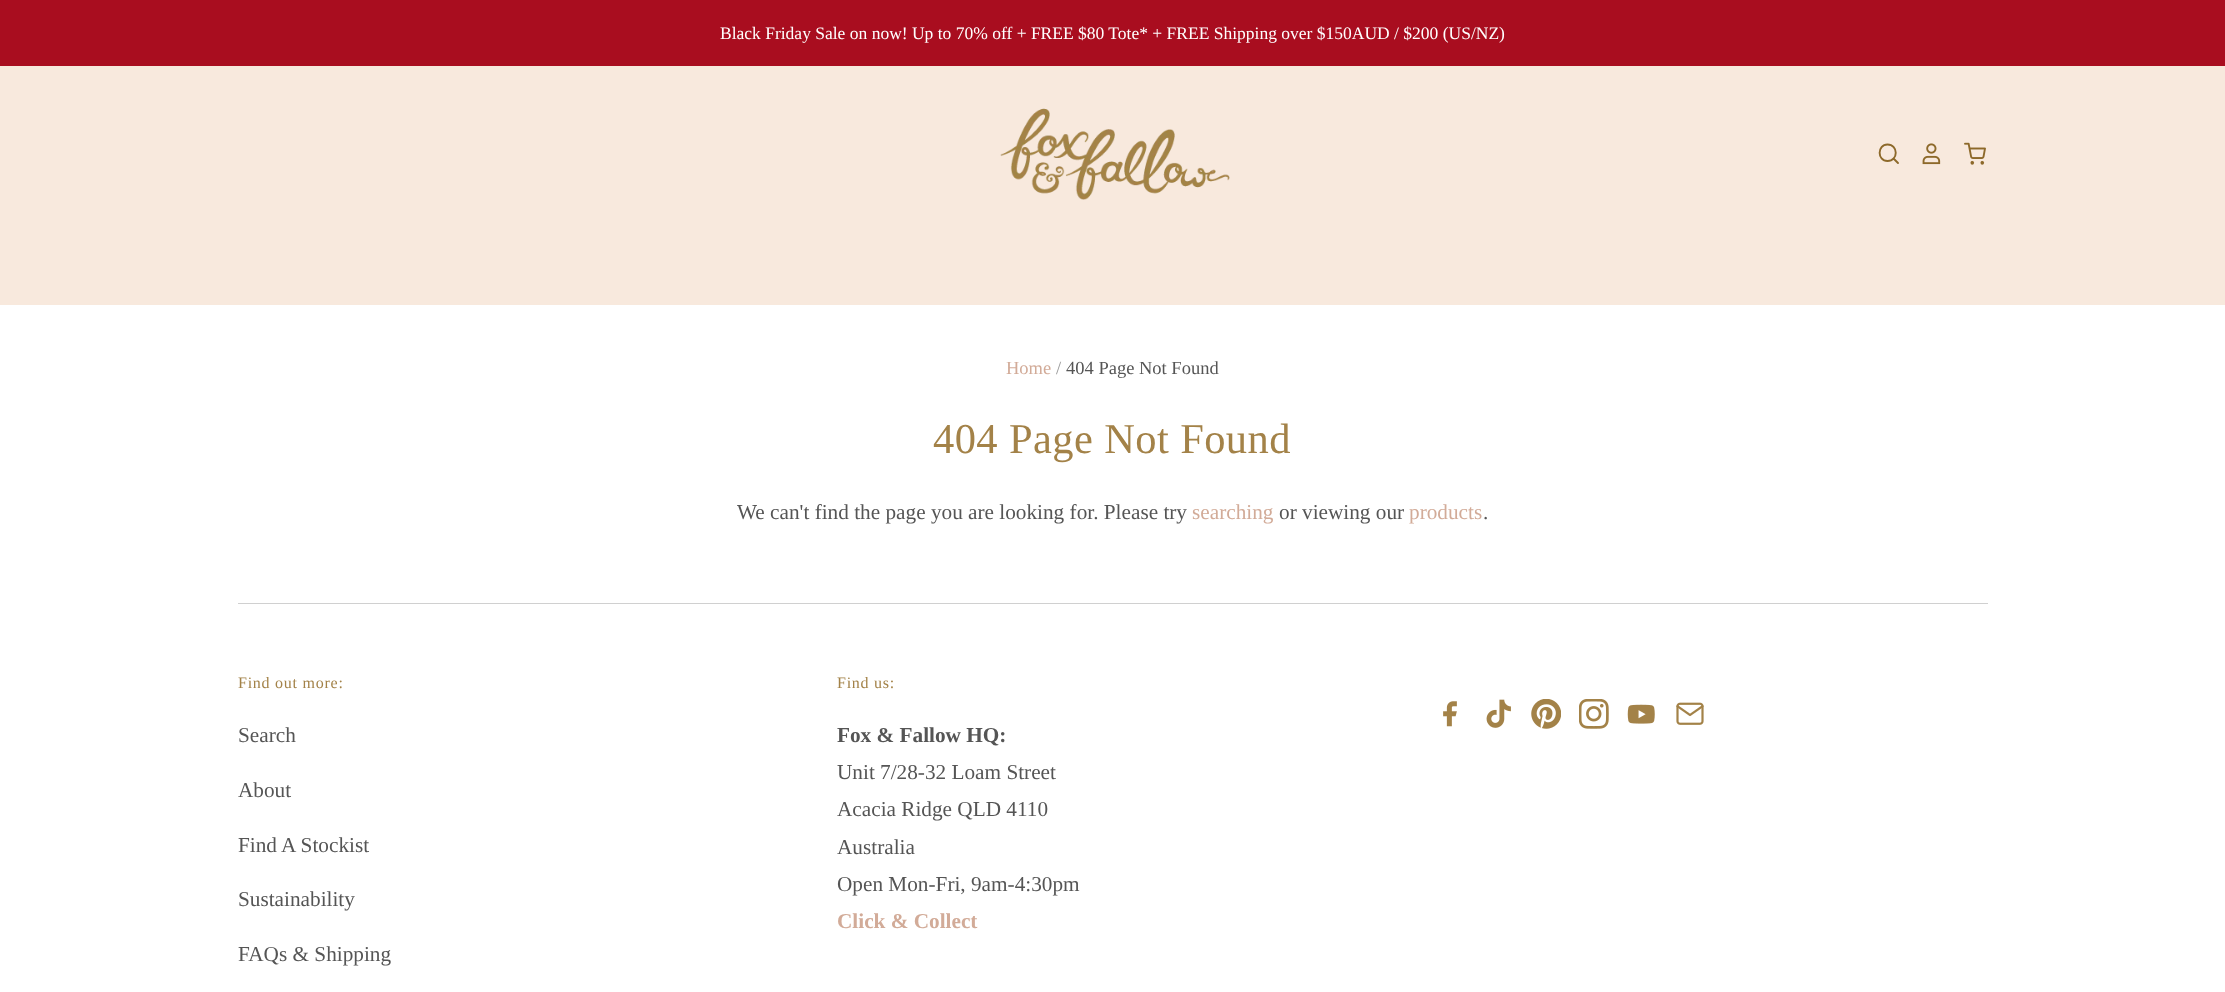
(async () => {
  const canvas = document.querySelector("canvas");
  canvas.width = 2225;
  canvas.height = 992;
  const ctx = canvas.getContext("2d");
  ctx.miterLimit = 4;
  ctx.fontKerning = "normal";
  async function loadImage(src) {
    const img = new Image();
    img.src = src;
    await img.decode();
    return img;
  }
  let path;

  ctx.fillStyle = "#ffffff";
  ctx.fillRect(0, 0, 2225, 992);
  ctx.fillStyle = "#a90d1f";
  ctx.fillRect(0, 0, 2225, 66);
  ctx.fillStyle = "#f8e9dd";
  ctx.fillRect(0, 66, 2225, 239);
  ctx.drawImage(await loadImage("img/1.png"), 1000, 108, 230, 92);
  path = new Path2D("M1887.5 144.5C1877 144.5 1877 161 1887.5 161C1898.5 161 1898.5 144.5 1887.5 144.5ZM1898 163L1893.5 158.5Z");
  ctx.strokeStyle = "#8d692a";
  ctx.lineWidth = 1.9;
  ctx.lineCap = "round";
  ctx.lineJoin = "round";
  ctx.stroke(path);
  ctx.drawImage(await loadImage("img/2.png"), 1922, 143, 19, 22);
  ctx.drawImage(await loadImage("img/3.png"), 1964, 142, 22, 23);
  ctx.fillStyle = "#d0d0d0";
  ctx.fillRect(238, 603, 1750, 1);
  ctx.drawImage(await loadImage("img/4.png"), 1443, 701, 14, 26);
  ctx.drawImage(await loadImage("img/5.png"), 1486, 699, 25, 29);
  ctx.drawImage(await loadImage("img/6.png"), 1531, 699, 30, 30);
  ctx.drawImage(await loadImage("img/7.png"), 1579, 699, 30, 30);
  ctx.drawImage(await loadImage("img/8.png"), 1627, 704, 28, 20);
  ctx.drawImage(await loadImage("img/9.png"), 1676, 702, 28, 23);
  ctx.font = "17.5px Liberation Serif";
  ctx.fillStyle = "#ffffff";
  ctx.fillText("Black Friday Sale on now! Up to 70% off + FREE $80 Tote* + FREE Shipping over $150AUD / $200 (US/NZ)", 720, 39);
  ctx.font = "18.5px Liberation Serif";
  ctx.fillStyle = "#d2ab98";
  ctx.fillText("Home", 1006, 374);
  ctx.fillStyle = "#999999";
  ctx.fillText("/", 1056, 374);
  ctx.fillStyle = "#555555";
  ctx.fillText("404 Page Not Found", 1066, 374);
  ctx.letterSpacing = "0.4px";
  ctx.font = "42.5px Liberation Serif";
  ctx.fillStyle = "#a38248";
  ctx.fillText("404 Page Not Found", 933, 453);
  ctx.letterSpacing = "0px";
  ctx.font = "21.25px Liberation Serif";
  ctx.fillStyle = "#555555";
  ctx.fillText("We can't find the page you are looking for. Please try", 737, 519);
  ctx.fillStyle = "#d2ab98";
  ctx.fillText("searching", 1192, 519);
  ctx.fillStyle = "#555555";
  ctx.fillText("or viewing our", 1279, 519);
  ctx.fillStyle = "#d2ab98";
  ctx.fillText("products", 1409, 519);
  ctx.fillStyle = "#555555";
  ctx.fillText(".", 1483, 519);
  ctx.letterSpacing = "0.75px";
  ctx.font = "16px Liberation Serif";
  ctx.fillStyle = "#a38248";
  ctx.fillText("Find out more:", 238, 688);
  ctx.letterSpacing = "0px";
  ctx.font = "21.25px Liberation Serif";
  ctx.fillStyle = "#555555";
  for (const [text, x, y] of [
    ["Search", 238, 742],
    ["About", 238, 797],
    ["Find A Stockist", 238, 852],
    ["Sustainability", 238, 906],
    ["FAQs & Shipping", 238, 961],
  ]) {
    ctx.fillText(text, x, y);
  }
  ctx.letterSpacing = "0.75px";
  ctx.font = "16px Liberation Serif";
  ctx.fillStyle = "#a38248";
  ctx.fillText("Find us:", 837, 688);
  ctx.letterSpacing = "0px";
  ctx.font = "bold 21.25px Liberation Serif";
  ctx.fillStyle = "#555555";
  ctx.fillText("Fox & Fallow HQ:", 837, 742);
  ctx.font = "21.25px Liberation Serif";
  for (const [text, x, y] of [
    ["Unit 7/28-32 Loam Street", 837, 779],
    ["Acacia Ridge QLD 4110", 837, 816],
    ["Australia", 837, 854],
    ["Open Mon-Fri, 9am-4:30pm", 837, 891],
  ]) {
    ctx.fillText(text, x, y);
  }
  ctx.font = "bold 21.25px Liberation Serif";
  ctx.fillStyle = "#d2ab98";
  ctx.fillText("Click & Collect", 837, 928);
})();
